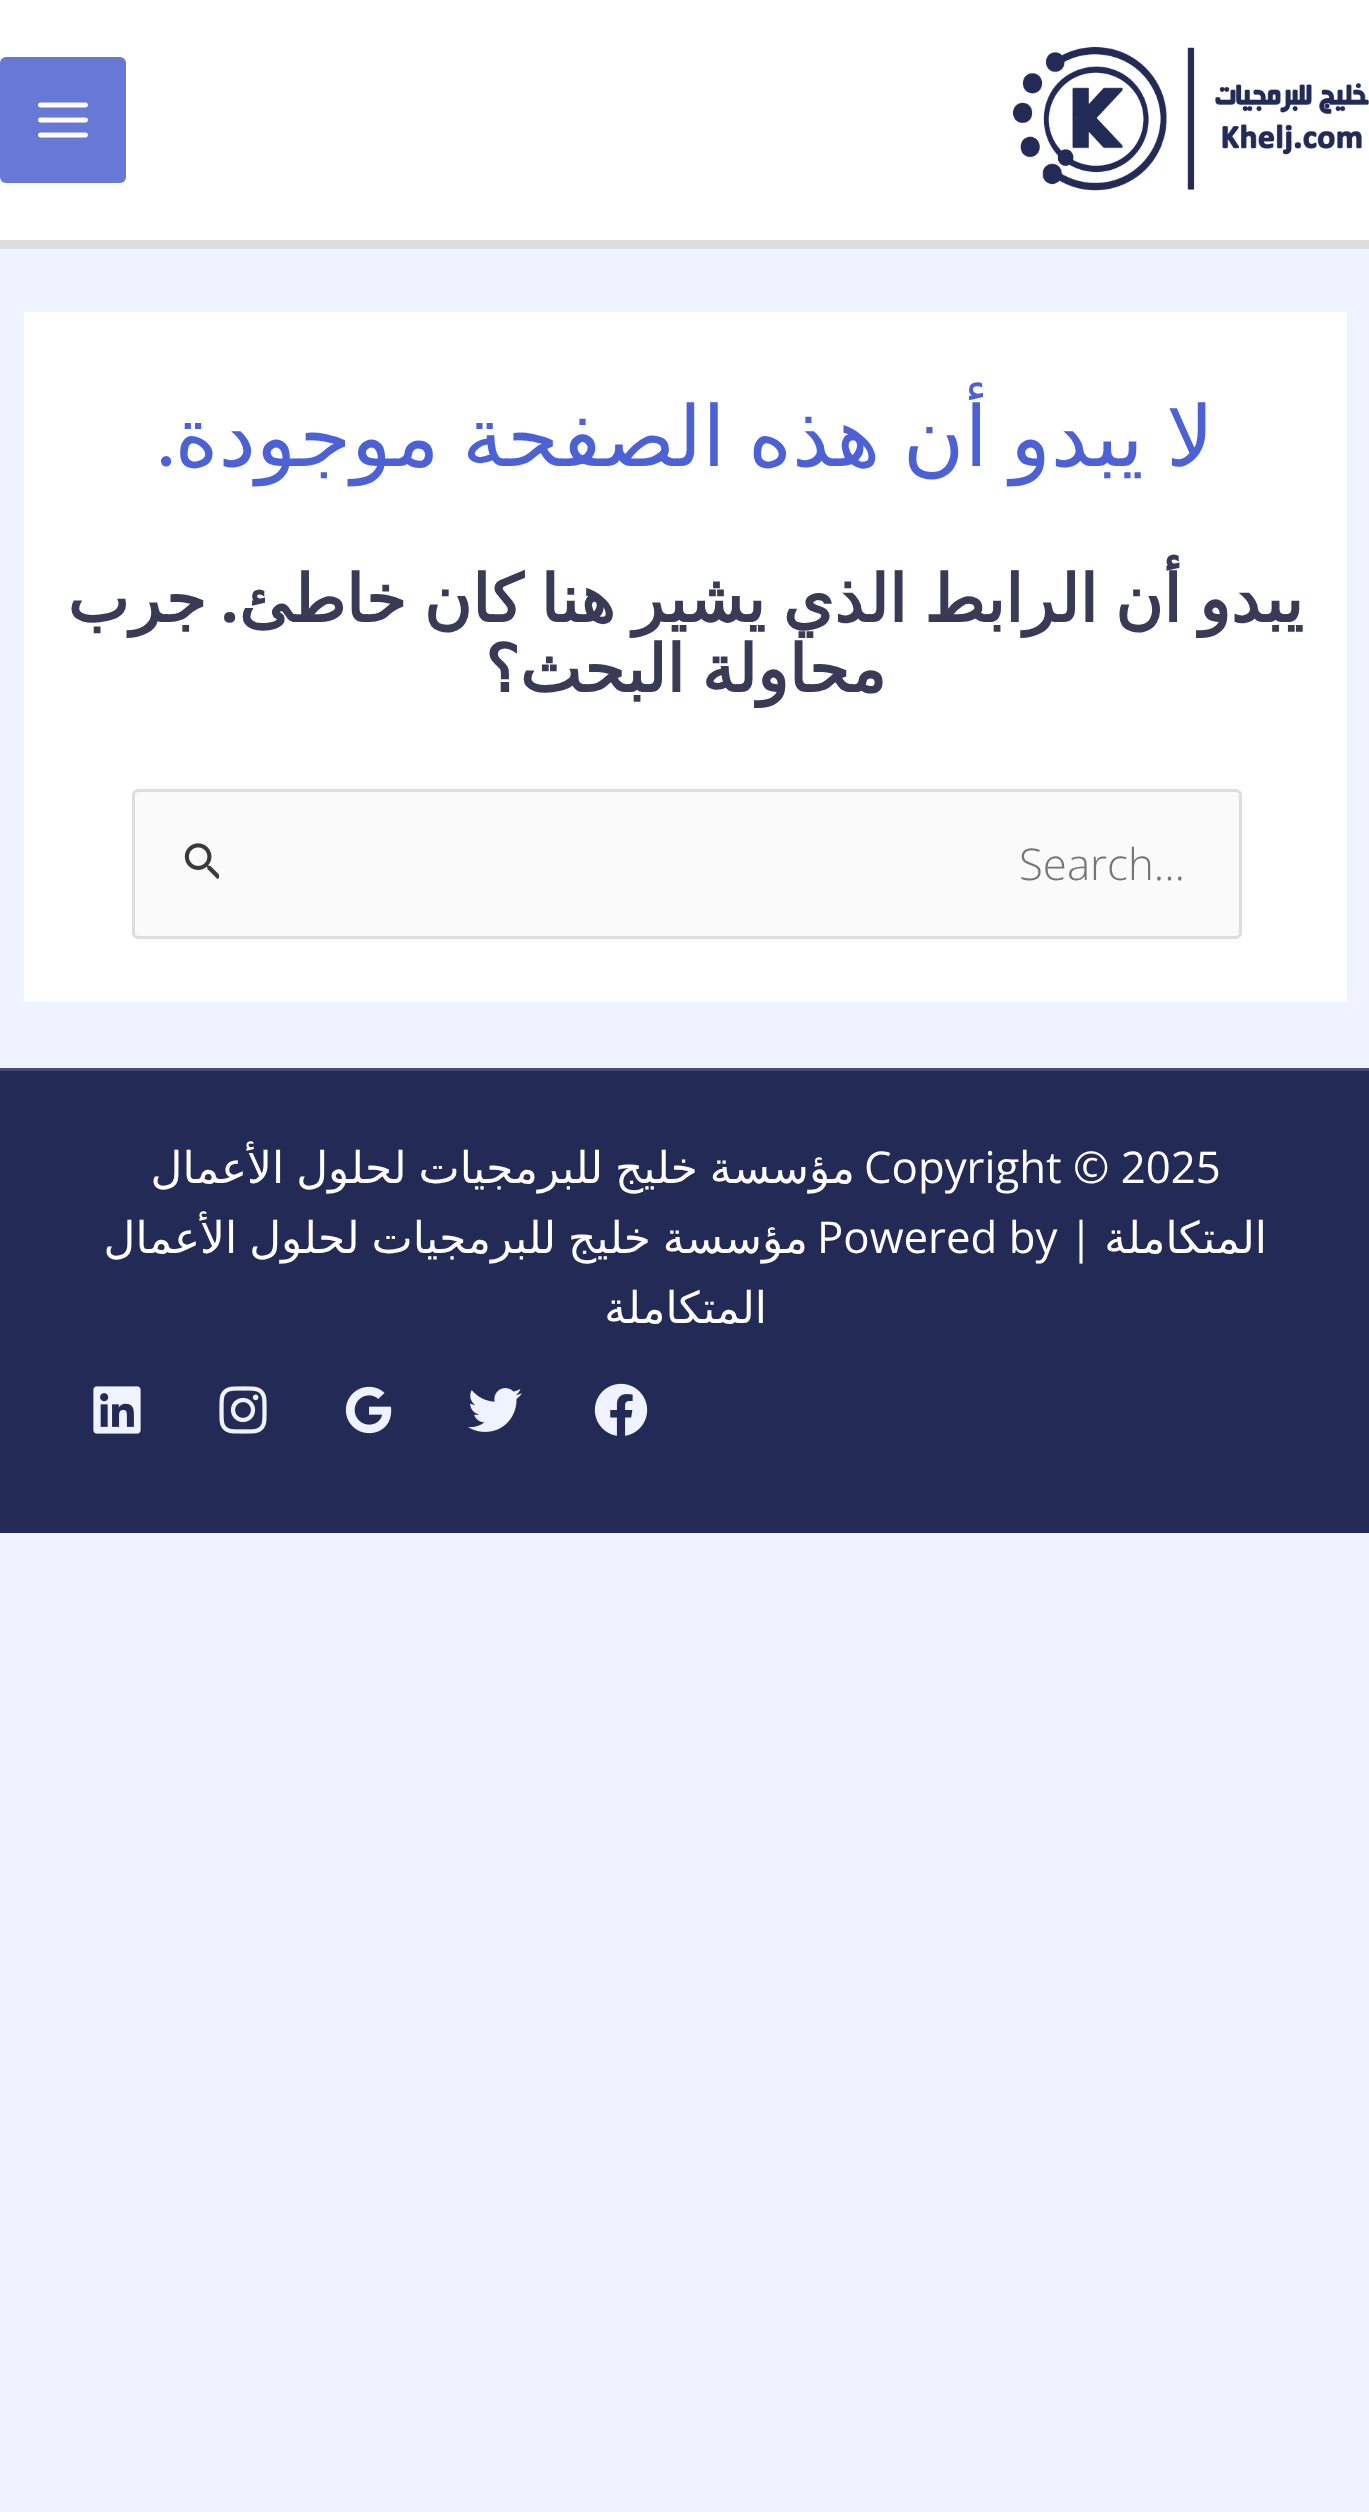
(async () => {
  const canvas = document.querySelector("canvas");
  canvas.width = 1369;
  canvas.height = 2512;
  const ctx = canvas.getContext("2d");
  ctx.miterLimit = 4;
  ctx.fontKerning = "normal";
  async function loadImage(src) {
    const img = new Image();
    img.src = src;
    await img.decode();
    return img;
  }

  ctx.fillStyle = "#eff2ff";
  ctx.fillRect(0, 0, 1369, 2512);
  ctx.fillStyle = "#ffffff";
  ctx.fillRect(0, 0, 1369, 240);
  ctx.fillStyle = "#dddddd";
  ctx.fillRect(0, 240, 1369, 9);
  ctx.drawImage(await loadImage("img/1.png"), 1012, 46, 357, 145);
  ctx.fillStyle = "#6878d6";
  ctx.beginPath();
  ctx.roundRect(0, 57, 126, 126, 6);
  ctx.fill();
  ctx.drawImage(await loadImage("img/2.png"), 38, 102, 50, 36);
  ctx.fillStyle = "#ffffff";
  ctx.fillRect(24, 312, 1323, 690);
  ctx.fillStyle = "#fafafa";
  ctx.beginPath();
  ctx.roundRect(133.5, 790.5, 1107, 147, 4.5);
  ctx.fill();
  ctx.strokeStyle = "#dddddd";
  ctx.lineWidth = 3;
  ctx.stroke();
  ctx.drawImage(await loadImage("img/3.png"), 184, 843, 35, 37);
  ctx.fillStyle = "#242a56";
  ctx.fillRect(0, 1071, 1369, 462);
  ctx.fillStyle = "#444a75";
  ctx.fillRect(0, 1068, 1369, 3);
  ctx.drawImage(await loadImage("img/4.png"), 594, 1383, 54, 53);
  ctx.drawImage(await loadImage("img/5.png"), 468, 1388, 54, 44);
  ctx.drawImage(await loadImage("img/6.png"), 345, 1386, 47, 48);
  ctx.drawImage(await loadImage("img/7.png"), 219, 1386, 48, 48);
  ctx.drawImage(await loadImage("img/8.png"), 93, 1386, 48, 48);
  ctx.wordSpacing = "-4.25px";
  ctx.direction = "rtl";
  ctx.font = "84px DejaVu Sans";
  ctx.fillStyle = "#4d61d6";
  ctx.fillText("لا يبدو أن هذه الصفحة موجودة", 1214, 466);
  ctx.wordSpacing = "0px";
  ctx.font = "84px Poppins";
  ctx.fillText(".", 175, 466);
  ctx.wordSpacing = "-3.5px";
  ctx.font = "bold 65.7px DejaVu Sans";
  ctx.fillStyle = "#393a56";
  ctx.fillText("يبدو أن الرابط الذي يشير هنا كان خاطئ", 1303, 622);
  ctx.wordSpacing = "0px";
  ctx.font = "bold 65.7px Open Sans";
  ctx.fillText(".", 239, 622);
  ctx.font = "bold 65.7px DejaVu Sans";
  ctx.fillText("جرب", 206, 622);
  ctx.wordSpacing = "-4px";
  ctx.fillText("محاولة البحث؟", 886, 692);
  ctx.wordSpacing = "0px";
  ctx.direction = "ltr";
  ctx.font = "300 43.75px Open Sans";
  ctx.fillStyle = "#757575";
  ctx.fillText("Search...", 1019, 880);
  ctx.font = "43.75px Open Sans";
  ctx.fillStyle = "#ffffff";
  ctx.fillText("Copyright © 2025", 864, 1183);
  ctx.wordSpacing = "-2px";
  ctx.direction = "rtl";
  ctx.font = "43.75px DejaVu Sans";
  ctx.fillText("مؤسسة خليج للبرمجيات لحلول الأعمال", 855, 1183);
  ctx.wordSpacing = "0px";
  ctx.fillText("المتكاملة", 1267, 1253);
  ctx.font = "43.75px Open Sans";
  ctx.fillText("|", 1093, 1253);
  ctx.direction = "ltr";
  ctx.fillText("Powered by", 817, 1253);
  ctx.wordSpacing = "-2px";
  ctx.direction = "rtl";
  ctx.font = "43.75px DejaVu Sans";
  ctx.fillText("مؤسسة خليج للبرمجيات لحلول الأعمال", 808, 1253);
  ctx.wordSpacing = "0px";
  ctx.fillText("المتكاملة", 767, 1323);
})();
